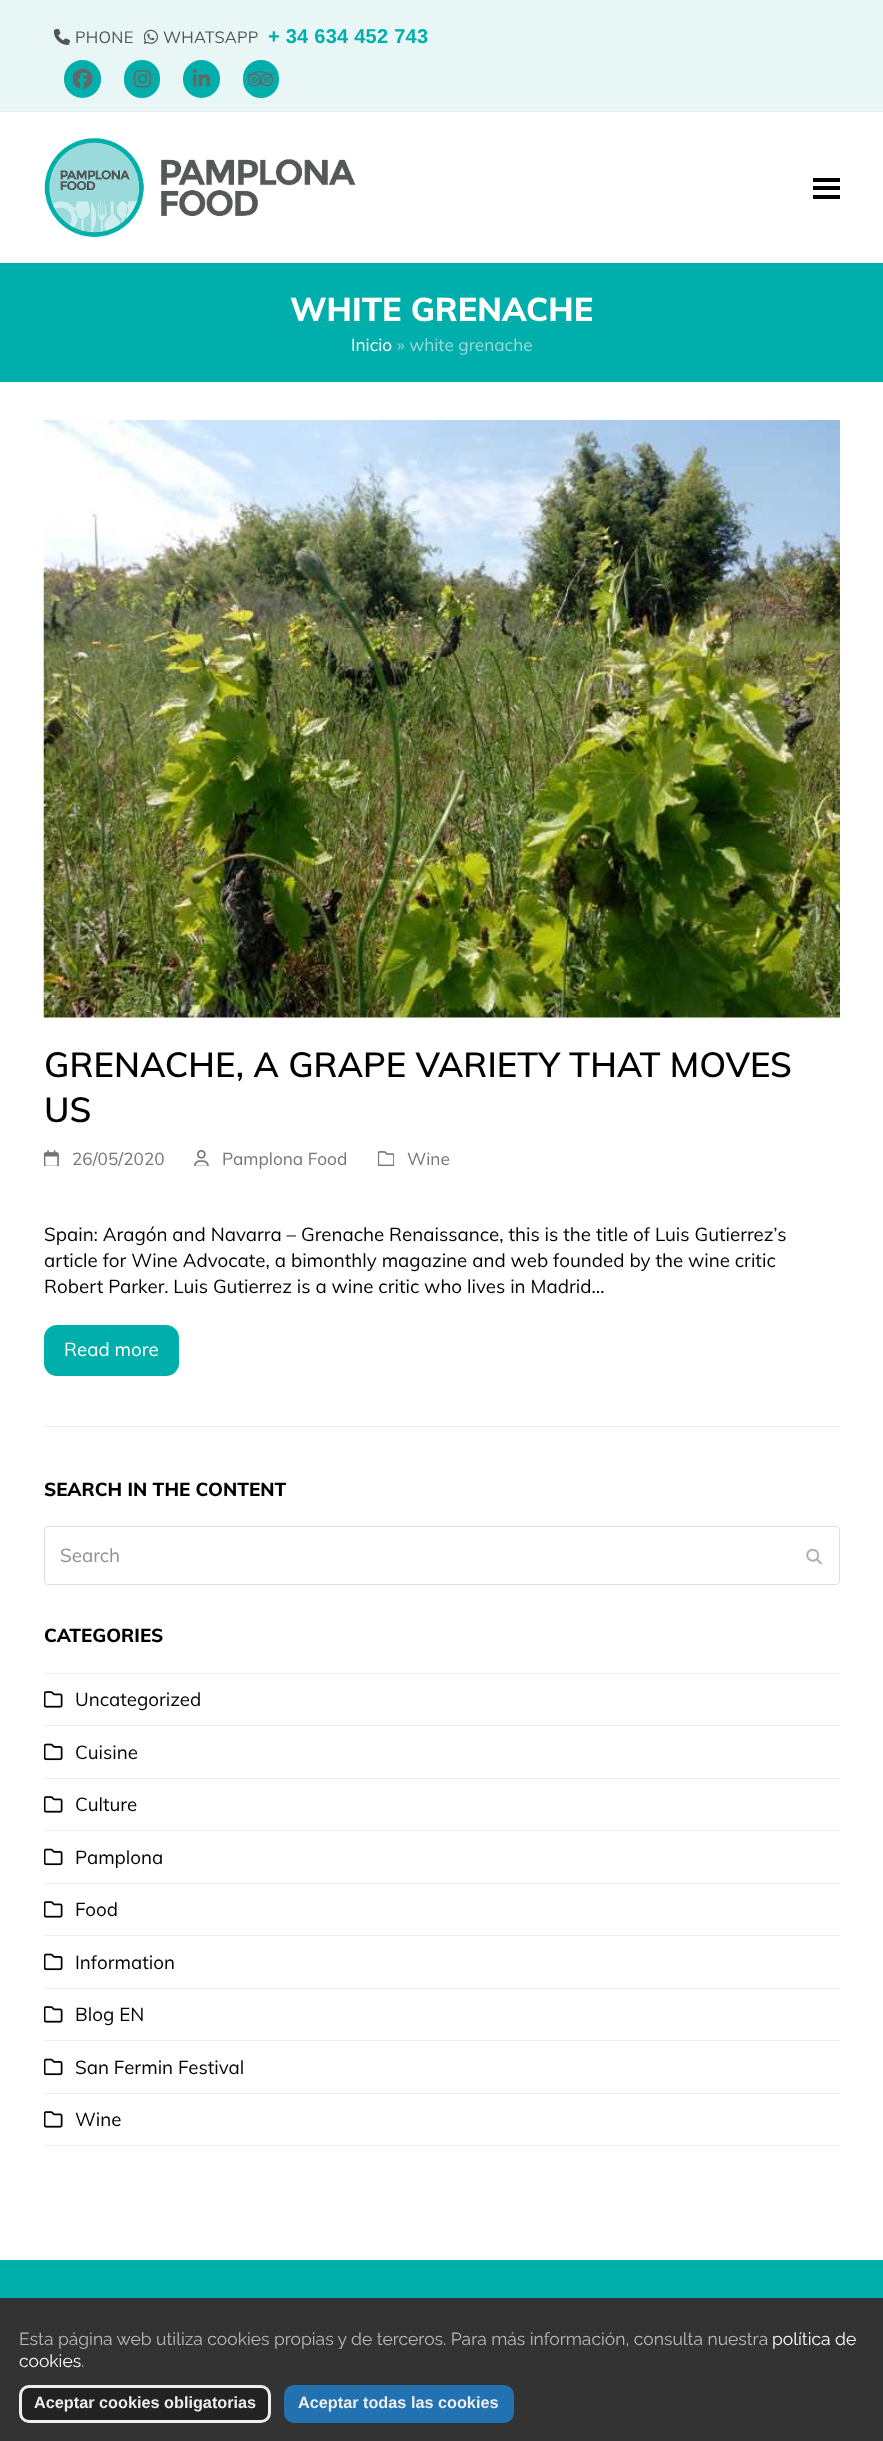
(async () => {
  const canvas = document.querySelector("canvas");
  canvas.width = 883;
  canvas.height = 2441;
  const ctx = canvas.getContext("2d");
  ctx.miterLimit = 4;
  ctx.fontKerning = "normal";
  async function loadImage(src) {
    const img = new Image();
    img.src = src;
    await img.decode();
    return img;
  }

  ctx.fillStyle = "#ffffff";
  ctx.fillRect(0, 0, 883, 2441);
  ctx.fillStyle = "#e9f6f6";
  ctx.fillRect(0, 0, 883, 111);
  ctx.fillStyle = "#eeeeee";
  ctx.fillRect(0, 111, 883, 1);
  ctx.drawImage(await loadImage("img/1.png"), 54, 29, 16, 16);
  ctx.drawImage(await loadImage("img/2.png"), 144, 29, 14, 15);
  ctx.fillStyle = "#00afab";
  ctx.beginPath();
  ctx.roundRect(64, 60, 37, 38, 18.5);
  ctx.fill();
  ctx.drawImage(await loadImage("img/3.png"), 73, 69, 20, 20);
  ctx.beginPath();
  ctx.roundRect(124, 60, 36, 38, 18);
  ctx.fill();
  ctx.drawImage(await loadImage("img/4.png"), 134, 70, 17, 18);
  ctx.beginPath();
  ctx.roundRect(183, 60, 37, 38, 18.5);
  ctx.fill();
  ctx.drawImage(await loadImage("img/5.png"), 193, 69, 17, 18);
  ctx.beginPath();
  ctx.roundRect(243, 60, 36, 38, 18);
  ctx.fill();
  ctx.drawImage(await loadImage("img/6.png"), 248, 71, 26, 16);
  ctx.drawImage(await loadImage("img/7.png"), 44, 138, 312, 99);
  for (const [x, y, w, h, color] of [
    [813, 186, 27, 4, "#000000"],
    [813, 178, 27, 4, "#000000"],
    [813, 195, 27, 4, "#000000"],
    [0, 263, 883, 119, "#00afab"],
  ]) {
    ctx.fillStyle = color;
    ctx.fillRect(x, y, w, h);
  }
  ctx.drawImage(await loadImage("img/8.png"), 43, 420, 797, 598);
  ctx.drawImage(await loadImage("img/9.png"), 44, 1150, 15, 16);
  ctx.drawImage(await loadImage("img/10.png"), 194, 1150, 15, 16);
  ctx.drawImage(await loadImage("img/11.png"), 378, 1151, 16, 15);
  ctx.beginPath();
  ctx.roundRect(44, 1325, 135, 51, 13);
  ctx.fill();
  ctx.fillStyle = "#eeeeee";
  ctx.fillRect(44, 1426, 796, 1);
  ctx.beginPath();
  ctx.roundRect(44.5, 1526.5, 795, 58, 3.5);
  ctx.strokeStyle = "#e0e0e0";
  ctx.stroke();
  ctx.drawImage(await loadImage("img/12.png"), 806, 1549, 17, 15);
  ctx.fillRect(44, 1673, 796, 1);
  ctx.fillRect(44, 1725, 796, 1);
  ctx.drawImage(await loadImage("img/13.png"), 44, 1691, 19, 17);
  ctx.fillRect(44, 1778, 796, 1);
  ctx.drawImage(await loadImage("img/14.png"), 44, 1743, 19, 18);
  ctx.fillRect(44, 1830, 796, 1);
  ctx.drawImage(await loadImage("img/13.png"), 44, 1796, 19, 17);
  ctx.fillRect(44, 1883, 796, 1);
  ctx.drawImage(await loadImage("img/14.png"), 44, 1848, 19, 18);
  ctx.fillRect(44, 1935, 796, 1);
  ctx.drawImage(await loadImage("img/13.png"), 44, 1901, 19, 17);
  ctx.fillRect(44, 1988, 796, 1);
  ctx.drawImage(await loadImage("img/14.png"), 44, 1953, 19, 18);
  ctx.fillRect(44, 2040, 796, 1);
  ctx.drawImage(await loadImage("img/13.png"), 44, 2006, 19, 17);
  ctx.fillRect(44, 2093, 796, 1);
  ctx.drawImage(await loadImage("img/14.png"), 44, 2058, 19, 18);
  ctx.fillRect(44, 2145, 796, 1);
  ctx.drawImage(await loadImage("img/13.png"), 44, 2111, 19, 17);
  ctx.fillStyle = "#00afab";
  ctx.fillRect(0, 2260, 883, 38);
  ctx.fillStyle = "#333333";
  ctx.fillRect(0, 2298, 883, 143);
  ctx.fillStyle = "#222222";
  ctx.beginPath();
  ctx.roundRect(20.5, 2386.5, 249, 35, 8.5);
  ctx.fill();
  ctx.strokeStyle = "#eeeeee";
  ctx.lineWidth = 3;
  ctx.stroke();
  ctx.fillStyle = "#2271b1";
  ctx.beginPath();
  ctx.roundRect(285.5, 2386.5, 227, 35, 8.5);
  ctx.fill();
  ctx.strokeStyle = "#2271b1";
  ctx.stroke();
  ctx.letterSpacing = "0.25px";
  ctx.font = "16.25px Muli";
  ctx.fillStyle = "#545454";
  ctx.fillText("PHONE", 75, 43);
  ctx.fillText("WHATSAPP", 163, 43);
  ctx.font = "bold 20px Liberation Sans";
  ctx.fillStyle = "#00afab";
  ctx.fillText("+ 34 634 452 743", 268, 43);
  ctx.letterSpacing = "0px";
  ctx.font = "800 32.5px Muli";
  ctx.fillStyle = "#ffffff";
  ctx.fillText("WHITE GRENACHE", 290, 321);
  ctx.font = "17.25px Muli";
  ctx.fillText("Inicio", 351, 351);
  ctx.fillStyle = "#9adada";
  ctx.fillText("» white grenache", 397, 351);
  ctx.font = "600 34.6px Muli";
  ctx.fillStyle = "#000000";
  ctx.fillText("GRENACHE, A GRAPE VARIETY THAT MOVES", 44, 1077);
  ctx.fillText("US", 44, 1122);
  ctx.font = "17.25px Muli";
  ctx.fillStyle = "#757575";
  for (const [text, x, y] of [
    ["26/05/2020", 72, 1165],
    ["Pamplona Food", 222, 1165],
    ["Wine", 407, 1165],
  ]) {
    ctx.fillText(text, x, y);
  }
  ctx.font = "18.75px Muli";
  ctx.fillStyle = "#000000";
  for (const [text, x, y] of [
    ["Spain: Aragón and Navarra – Grenache Renaissance, this is the title of Luis Gutierrez’s", 44, 1241],
    ["article for Wine Advocate, a bimonthly magazine and web founded by the wine critic", 44, 1267],
    ["Robert Parker. Luis Gutierrez is a wine critic who lives in Madrid…", 44, 1293],
  ]) {
    ctx.fillText(text, x, y);
  }
  ctx.fillStyle = "#ffffff";
  ctx.fillText("Read more", 64, 1356);
  ctx.font = "800 18.75px Muli";
  ctx.fillStyle = "#000000";
  ctx.fillText("SEARCH IN THE CONTENT", 44, 1496);
  ctx.font = "18.75px Muli";
  ctx.fillStyle = "#909090";
  ctx.fillText("Search", 60, 1562);
  ctx.font = "800 18.75px Muli";
  ctx.fillStyle = "#000000";
  ctx.fillText("CATEGORIES", 44, 1642);
  ctx.font = "18.75px Muli";
  for (const [text, x, y] of [
    ["Uncategorized", 75, 1706],
    ["Cuisine", 75, 1759],
    ["Culture", 75, 1811],
    ["Pamplona", 75, 1864],
    ["Food", 75, 1916],
    ["Information", 75, 1969],
    ["Blog EN", 75, 2021],
    ["San Fermin Festival", 75, 2074],
    ["Wine", 75, 2126],
  ]) {
    ctx.fillText(text, x, y);
  }
  ctx.font = "17.5px Raleway";
  ctx.fillStyle = "#bbbbbb";
  ctx.fillText("Esta página web utiliza cookies propias y de terceros. Para más información, consulta nuestra", 19, 2345);
  ctx.fillStyle = "#ffffff";
  ctx.fillText("política de", 772, 2345);
  ctx.fillText("cookies", 19, 2367);
  ctx.fillStyle = "#bbbbbb";
  ctx.fillText(".", 81, 2367);
  ctx.font = "bold 16.25px Liberation Sans";
  ctx.fillStyle = "#eeeeee";
  ctx.fillText("Aceptar cookies obligatorias", 34, 2408);
  ctx.fillText("Aceptar todas las cookies", 298, 2408);
})();
